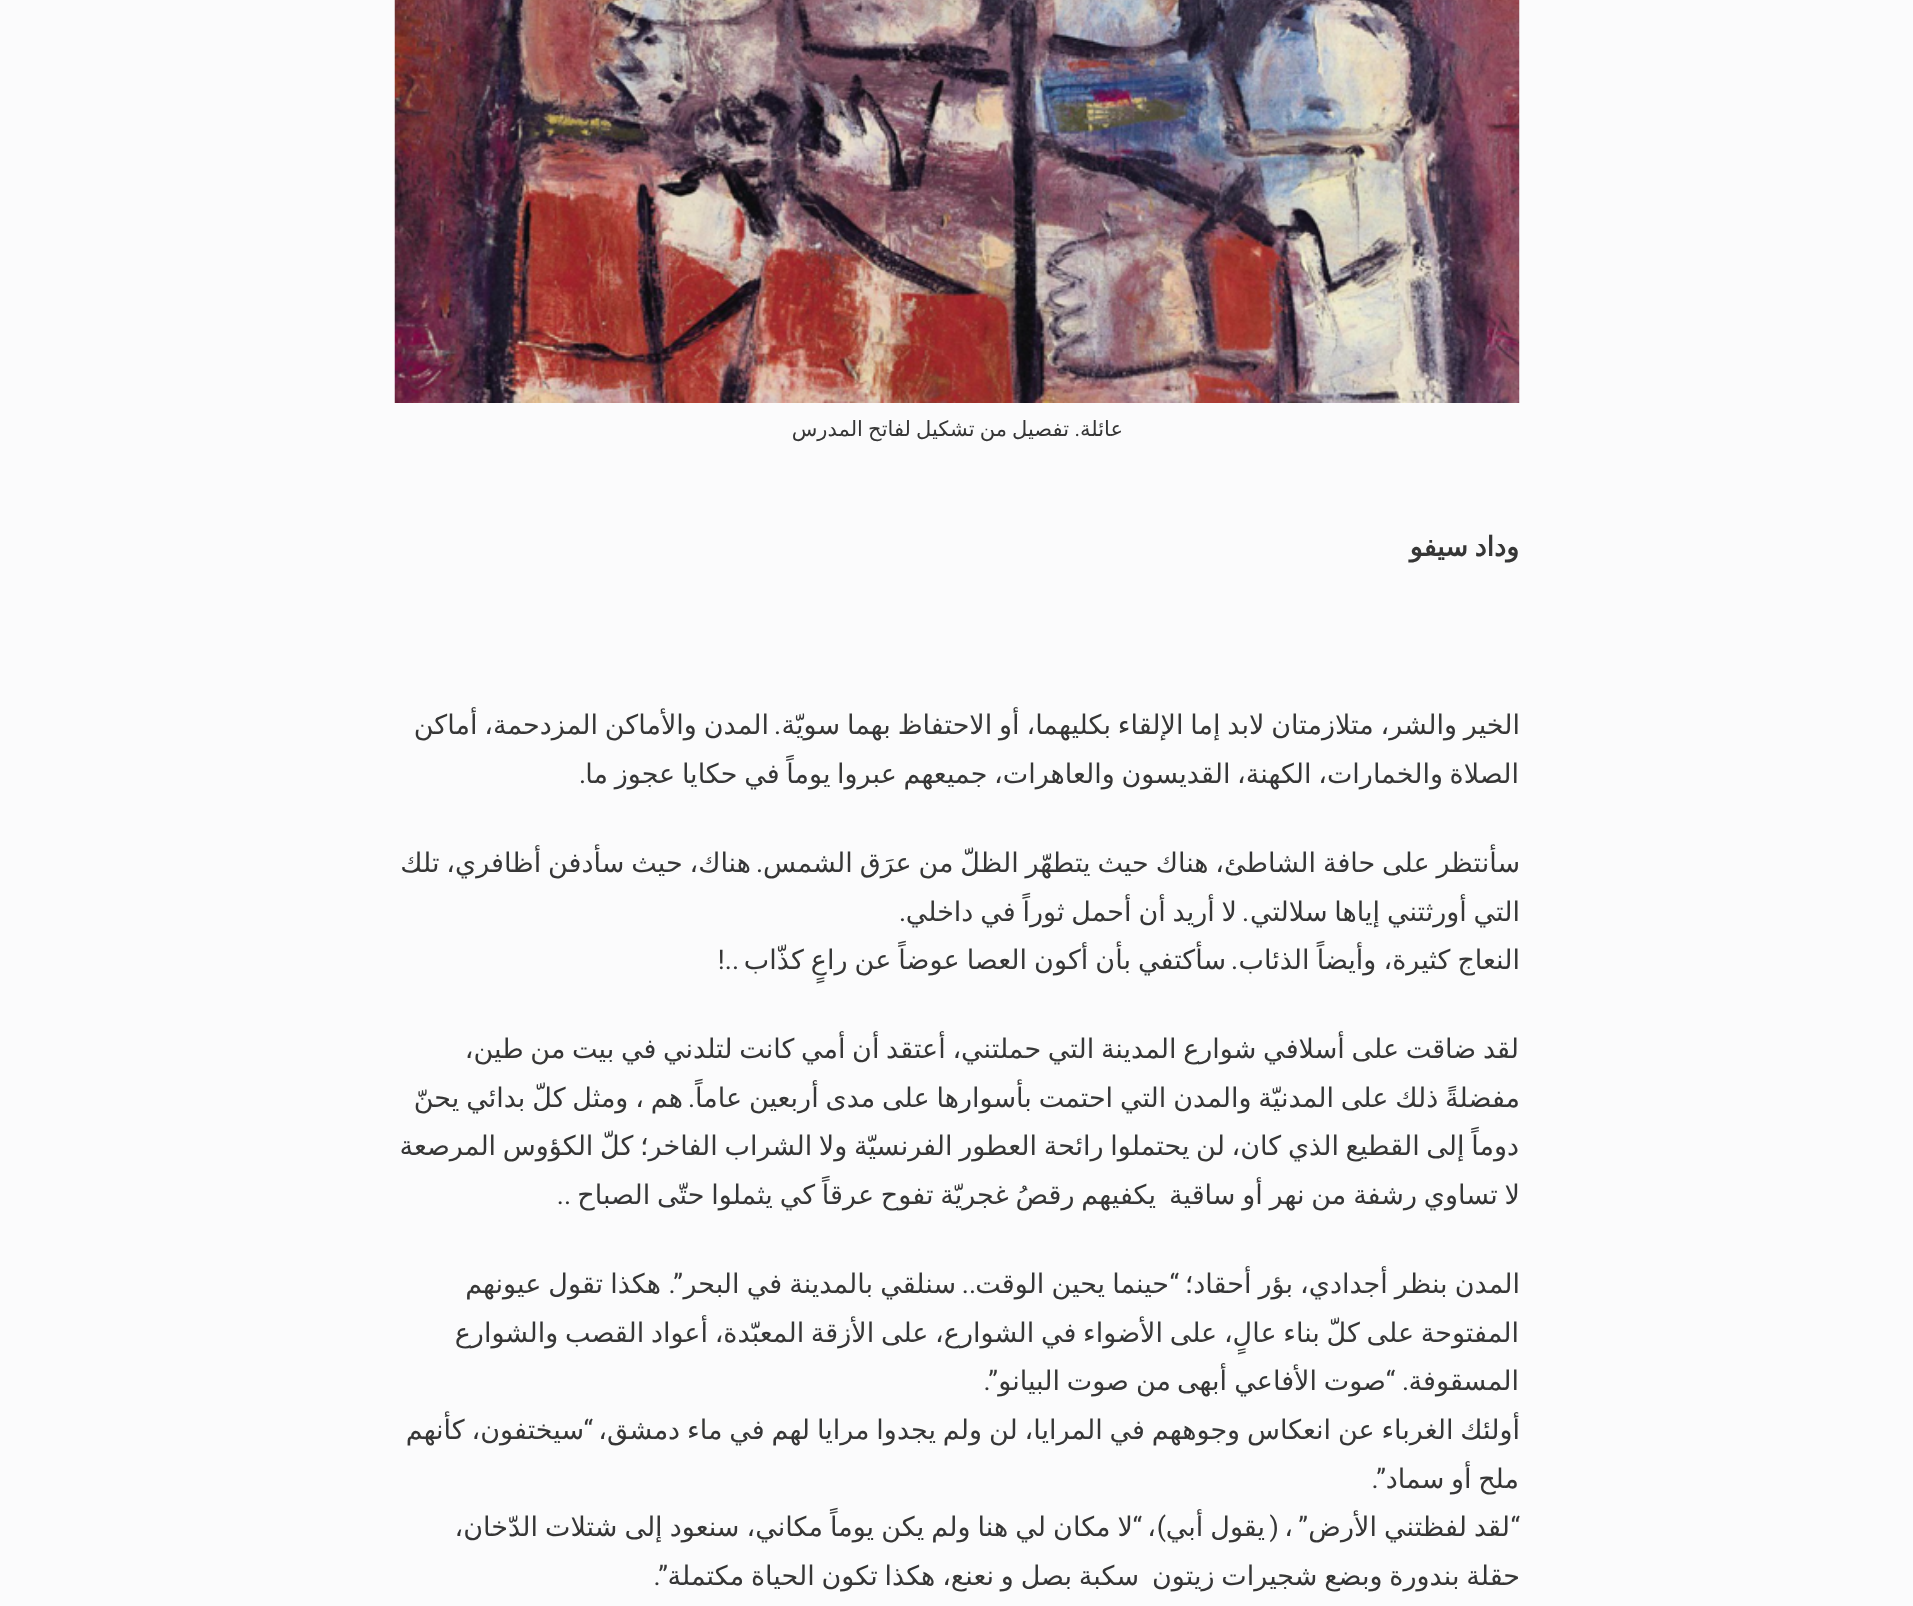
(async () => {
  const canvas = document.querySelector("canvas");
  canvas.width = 1913;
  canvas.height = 1606;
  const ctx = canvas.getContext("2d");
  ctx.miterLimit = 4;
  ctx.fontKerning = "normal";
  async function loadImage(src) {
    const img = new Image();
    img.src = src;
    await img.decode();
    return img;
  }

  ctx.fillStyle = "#fbfbfc";
  ctx.fillRect(0, 0, 1913, 1606);
  ctx.drawImage(await loadImage("img/1.png"), 394, 0, 1126, 403);
  ctx.direction = "rtl";
  ctx.font = "21px DejaVu Sans";
  ctx.fillStyle = "#363636";
  ctx.fillText("عائلة", 1123, 436);
  ctx.font = "21px Roboto";
  ctx.fillText(".", 1080, 436);
  ctx.wordSpacing = "-1.5px";
  ctx.font = "21px DejaVu Sans";
  ctx.fillText("تفصيل من تشكيل لفاتح المدرس", 1069, 436);
  ctx.wordSpacing = "-2px";
  ctx.font = "bold 27px DejaVu Sans";
  ctx.fillText("وداد سيفو", 1519, 556);
  ctx.wordSpacing = "-1.75px";
  ctx.font = "27px DejaVu Sans";
  ctx.fillText("الخير والشر، متلازمتان لابد إما الإلقاء بكليهما، أو الاحتفاظ بهما سويّة", 1520, 734);
  ctx.wordSpacing = "0px";
  ctx.font = "27px Roboto";
  ctx.fillText(".", 781, 734);
  ctx.wordSpacing = "-1.75px";
  ctx.font = "27px DejaVu Sans";
  ctx.fillText("المدن والأماكن المزدحمة، أماكن", 769, 734);
  ctx.wordSpacing = "-1.9px";
  ctx.fillText("الصلاة والخمارات، الكهنة، القديسون والعاهرات، جميعهم عبروا يوماً في حكايا عجوز ما", 1519, 783);
  ctx.wordSpacing = "0px";
  ctx.font = "27px Roboto";
  ctx.fillText(".", 586, 783);
  ctx.wordSpacing = "-1.75px";
  ctx.font = "27px DejaVu Sans";
  ctx.fillText("سأنتظر على حافة الشاطئ، هناك حيث يتطهّر الظلّ من عرَق الشمس", 1520, 872);
  ctx.wordSpacing = "0px";
  ctx.font = "27px Roboto";
  ctx.fillText(".", 763, 872);
  ctx.wordSpacing = "-1.75px";
  ctx.font = "27px DejaVu Sans";
  for (const [text, x, y] of [
    ["هناك، حيث سأدفن أظافري، تلك", 751, 872],
    ["التي أورثتني إياها سلالتي", 1520, 921],
    ["لا أريد أن أحمل ثوراً في داخلي", 1237, 921],
  ]) {
    ctx.fillText(text, x, y);
  }
  ctx.wordSpacing = "0px";
  ctx.font = "27px Roboto";
  ctx.fillText(".", 1249, 921);
  ctx.fillText(".", 906, 921);
  ctx.wordSpacing = "-1.5px";
  ctx.font = "27px DejaVu Sans";
  ctx.fillText("النعاج كثيرة، وأيضاً الذئاب", 1520, 969);
  ctx.fillText("سأكتفي بأن أكون العصا عوضاً عن راعٍ كذّاب", 1226, 969);
  ctx.wordSpacing = "0px";
  ctx.font = "27px Roboto";
  ctx.fillText("..!", 739, 969);
  ctx.fillText(".", 1238, 969);
  ctx.wordSpacing = "-1.9px";
  ctx.font = "27px DejaVu Sans";
  ctx.fillText("لقد ضاقت على أسلافي شوارع المدينة التي حملتني، أعتقد أن أمي كانت لتلدني في بيت من طين،", 1519, 1058);
  ctx.wordSpacing = "-1.75px";
  ctx.fillText("مفضلةً ذلك على المدنيّة والمدن التي احتمت بأسوارها على مدى أربعين عاماً", 1520, 1107);
  ctx.fillText("هم ، ومثل كلّ بدائي يحنّ", 683, 1107);
  ctx.wordSpacing = "0px";
  ctx.font = "27px Roboto";
  ctx.fillText(".", 695, 1107);
  ctx.wordSpacing = "-1.9px";
  ctx.font = "27px DejaVu Sans";
  ctx.fillText("دوماً إلى القطيع الذي كان، لن يحتملوا رائحة العطور الفرنسيّة ولا الشراب الفاخر؛ كلّ الكؤوس المرصعة", 1519, 1155);
  ctx.wordSpacing = "-1.75px";
  ctx.fillText("لا تساوي رشفة من نهر أو ساقية", 1520, 1204);
  ctx.fillText("يكفيهم رقصُ غجريّة تفوح عرقاً كي يثملوا حتّى الصباح", 1156, 1204);
  ctx.wordSpacing = "0px";
  ctx.font = "27px Roboto";
  ctx.fillText("..", 571, 1204);
  ctx.wordSpacing = "-1.5px";
  ctx.font = "27px DejaVu Sans";
  ctx.fillText("المدن بنظر أجدادي، بؤر أحقاد؛", 1520, 1293);
  ctx.fillText("حينما يحين الوقت", 1169, 1293);
  ctx.wordSpacing = "0px";
  ctx.font = "27px Roboto";
  ctx.fillText("“", 1179, 1293);
  ctx.wordSpacing = "-1.5px";
  ctx.font = "27px DejaVu Sans";
  ctx.fillText("سنلقي بالمدينة في البحر", 956, 1293);
  ctx.wordSpacing = "0px";
  ctx.font = "27px Roboto";
  ctx.fillText("”.", 683, 1293);
  ctx.wordSpacing = "-1.5px";
  ctx.font = "27px DejaVu Sans";
  ctx.fillText("هكذا تقول عيونهم", 661, 1293);
  ctx.wordSpacing = "0px";
  ctx.font = "27px Roboto";
  ctx.fillText("..", 976, 1293);
  ctx.wordSpacing = "-1.9px";
  ctx.font = "27px DejaVu Sans";
  ctx.fillText("المفتوحة على كلّ بناء عالٍ، على الأضواء في الشوارع، على الأزقة المعبّدة، أعواد القصب والشوارع", 1519, 1342);
  ctx.wordSpacing = "0px";
  ctx.fillText("المسقوفة", 1519, 1390);
  ctx.font = "27px Roboto";
  ctx.fillText(". “", 1409, 1390);
  ctx.font = "27px DejaVu Sans";
  for (const [text, x, y] of [
    ["صوت", 1386, 1390],
    ["الأفاعي", 1317, 1390],
    ["أبهى", 1227, 1390],
    ["من", 1171, 1390],
    ["صوت", 1129, 1390],
    ["البيانو", 1060, 1390],
  ]) {
    ctx.fillText(text, x, y);
  }
  ctx.font = "27px Roboto";
  ctx.fillText("”.", 998, 1390);
  ctx.wordSpacing = "-1.75px";
  ctx.font = "27px DejaVu Sans";
  ctx.fillText("أولئك الغرباء عن انعكاس وجوههم في المرايا، لن ولم يجدوا مرايا لهم في ماء دمشق،", 1520, 1439);
  ctx.wordSpacing = "0px";
  ctx.font = "27px Roboto";
  ctx.fillText("“", 593, 1439);
  ctx.wordSpacing = "-1.75px";
  ctx.font = "27px DejaVu Sans";
  ctx.fillText("سيختفون، كأنهم", 584, 1439);
  ctx.wordSpacing = "-1.9px";
  ctx.fillText("ملح أو سماد", 1519, 1488);
  ctx.wordSpacing = "0px";
  ctx.font = "27px Roboto";
  ctx.fillText("”.", 1386, 1488);
  ctx.wordSpacing = "-1.5px";
  ctx.font = "27px DejaVu Sans";
  ctx.fillText("لقد لفظتني الأرض", 1510, 1536);
  ctx.wordSpacing = "0px";
  ctx.font = "27px Roboto";
  ctx.fillText("(", 1279, 1536);
  ctx.wordSpacing = "-1.5px";
  ctx.font = "27px DejaVu Sans";
  ctx.fillText("يقول أبي", 1265, 1536);
  ctx.wordSpacing = "0px";
  ctx.font = "27px Roboto";
  ctx.fillText(")", 1166, 1536);
  ctx.wordSpacing = "-1.5px";
  ctx.font = "27px DejaVu Sans";
  ctx.fillText("لا مكان لي هنا ولم يكن يوماً مكاني، سنعود إلى شتلات الدّخان،", 1133, 1536);
  ctx.wordSpacing = "0px";
  ctx.font = "27px Roboto";
  for (const [text, x, y] of [
    ["“", 1520, 1536],
    ["”", 1308, 1536],
    ["“", 1142, 1536],
  ]) {
    ctx.fillText(text, x, y);
  }
  ctx.font = "27px DejaVu Sans";
  ctx.fillText("،", 1293, 1536);
  ctx.fillText("،", 1156, 1536);
  ctx.wordSpacing = "-1.75px";
  ctx.fillText("حقلة بندورة وبضع شجيرات زيتون", 1520, 1585);
  ctx.fillText("سكبة بصل و نعنع، هكذا تكون الحياة مكتملة", 1139, 1585);
  ctx.wordSpacing = "0px";
  ctx.font = "27px Roboto";
  ctx.fillText("”.", 668, 1585);
})();
